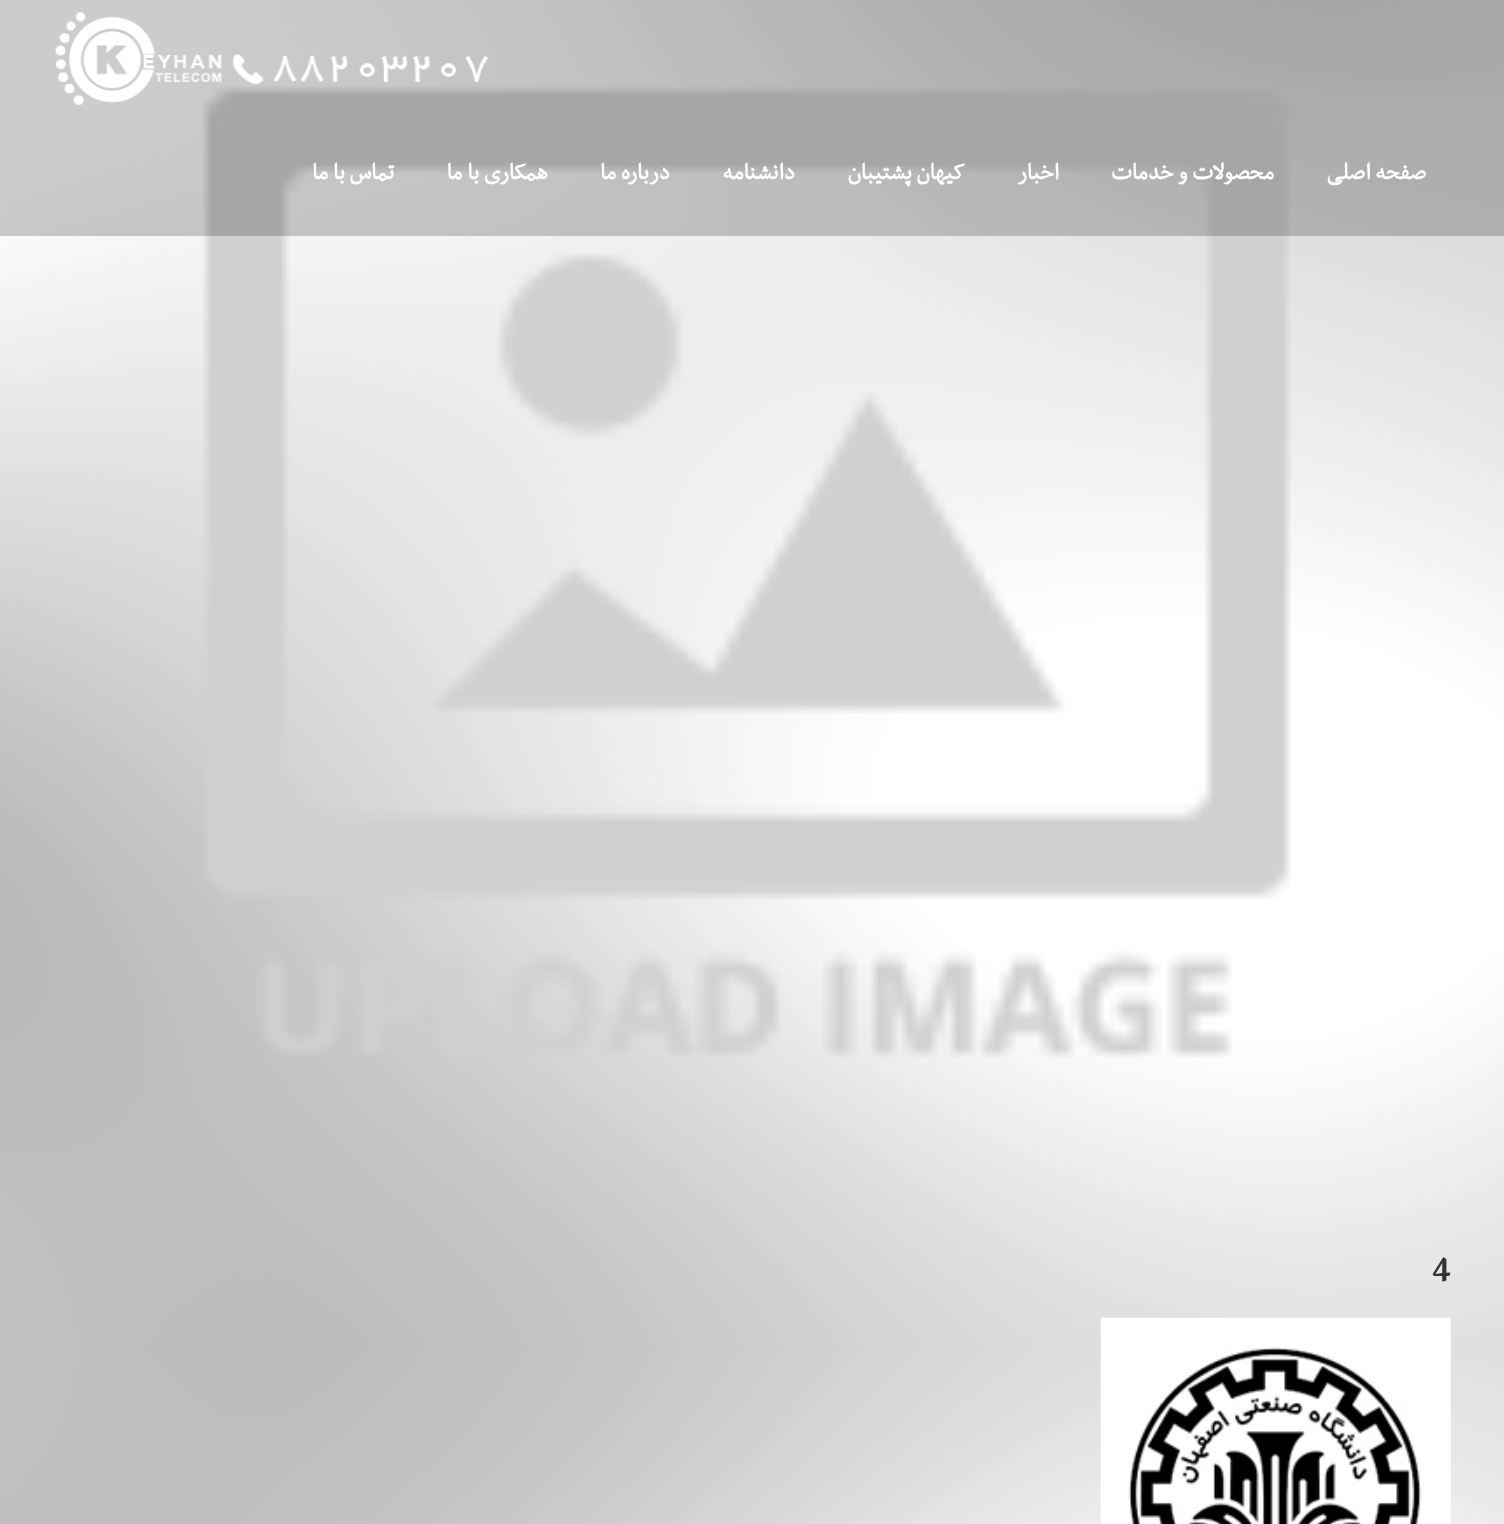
(async () => {
  const canvas = document.querySelector("canvas");
  canvas.width = 1504;
  canvas.height = 1524;
  const ctx = canvas.getContext("2d");
  ctx.miterLimit = 4;
  ctx.fontKerning = "normal";
  async function loadImage(src) {
    const img = new Image();
    img.src = src;
    await img.decode();
    return img;
  }

  ctx.fillStyle = "#ffffff";
  ctx.fillRect(0, 0, 1504, 1524);
  ctx.drawImage(await loadImage("img/1.png"), 0, 0, 1504, 1524);
  ctx.drawImage(await loadImage("img/2.png"), 0, 0, 1504, 1524);
  ctx.drawImage(await loadImage("img/4.png"), 203, 86, 1088, 972);
  ctx.fillStyle = "rgba(0, 0, 0, 0.2)";
  ctx.fillRect(0, 0, 1504, 236);
  ctx.drawImage(await loadImage("img/3.png"), 55, 12, 434, 93);
  ctx.drawImage(await loadImage("img/5.png"), 1100, 1317, 351, 207);
  ctx.direction = "rtl";
  ctx.font = "bold 26.25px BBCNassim";
  ctx.fillStyle = "#ffffff";
  for (const [text, x, y] of [
    ["صفحه اصلی", 1426, 179],
    ["محصولات و خدمات", 1274, 179],
    ["اخبار", 1059, 179],
    ["کیهان پشتیبان", 965, 179],
    ["دانشنامه", 795, 179],
    ["درباره ما", 670, 179],
    ["همکاری با ما", 548, 179],
    ["تماس با ما", 394, 179],
  ]) {
    ctx.fillText(text, x, y);
  }
  ctx.direction = "ltr";
  ctx.font = "bold 42px BBCNassim";
  ctx.fillStyle = "#333333";
  ctx.fillText("4", 1431, 1278);
})();
